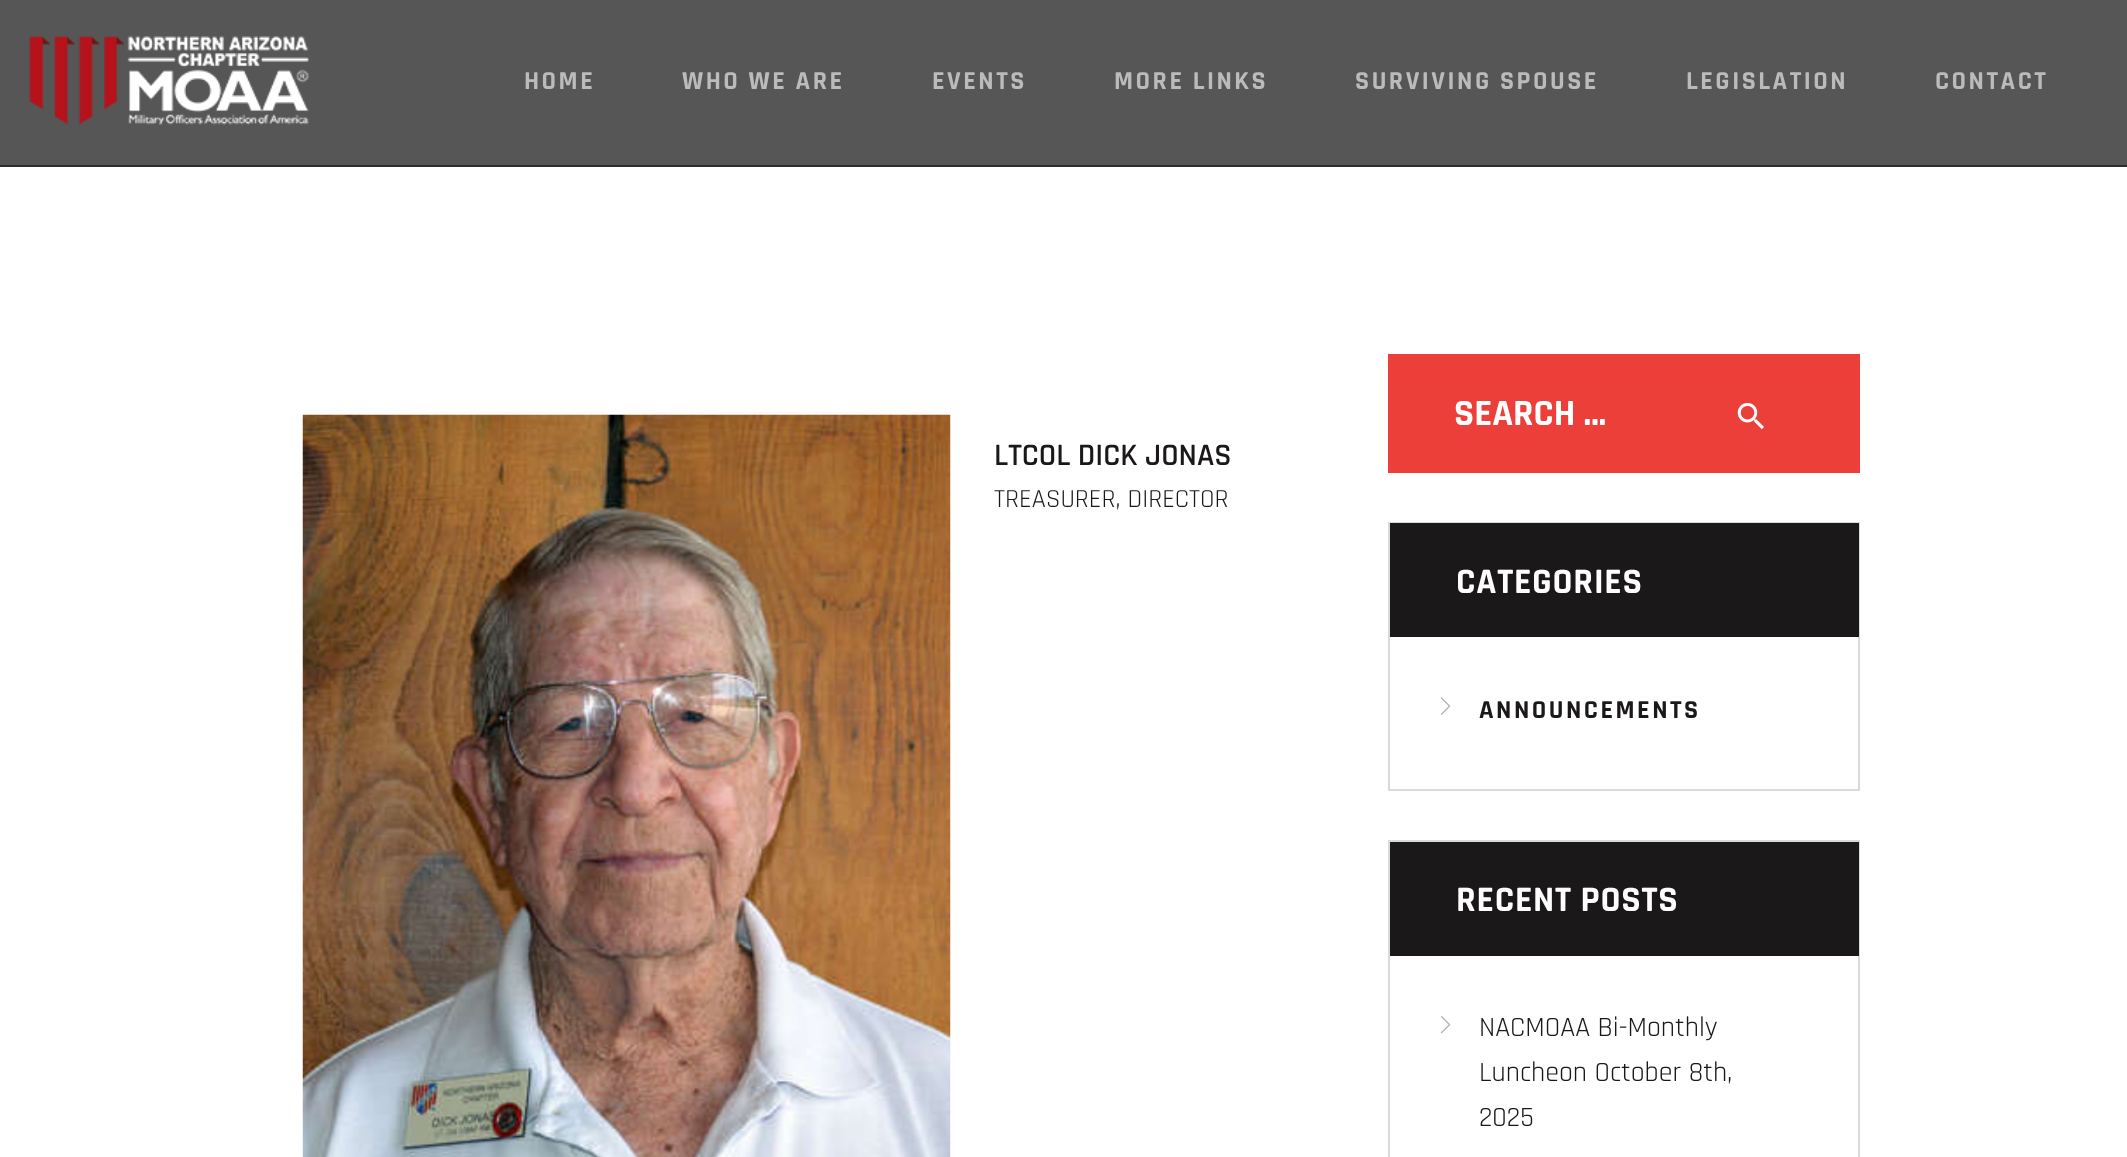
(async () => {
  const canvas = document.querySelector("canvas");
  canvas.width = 2127;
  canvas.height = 1157;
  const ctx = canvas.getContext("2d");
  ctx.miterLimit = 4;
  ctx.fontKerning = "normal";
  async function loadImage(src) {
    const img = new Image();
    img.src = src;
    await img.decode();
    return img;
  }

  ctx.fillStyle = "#ffffff";
  ctx.fillRect(0, 0, 2127, 1157);
  ctx.fillStyle = "#565656";
  ctx.fillRect(0, 0, 2127, 165);
  ctx.fillStyle = "#2e2c33";
  ctx.fillRect(0, 165, 2127, 2);
  ctx.drawImage(await loadImage("img/1.png"), 29, 36, 280, 89);
  ctx.drawImage(await loadImage("img/2.png"), 302, 414, 649, 743);
  ctx.fillStyle = "#ec3f3a";
  ctx.fillRect(1388, 354, 472, 119);
  ctx.drawImage(await loadImage("img/3.png"), 1737, 402, 27, 28);
  ctx.strokeStyle = "#dadada";
  ctx.lineWidth = 2;
  ctx.strokeRect(1389, 523, 470, 267);
  ctx.fillStyle = "#1b181a";
  ctx.fillRect(1390, 523, 469, 114);
  ctx.drawImage(await loadImage("img/4.png"), 1440, 697, 11, 18);
  ctx.strokeRect(1389, 841, 470, 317);
  ctx.fillRect(1390, 842, 469, 114);
  ctx.drawImage(await loadImage("img/5.png"), 1440, 1016, 11, 18);
  ctx.letterSpacing = "2.5px";
  ctx.font = "bold 26.25px Rajdhani";
  ctx.fillStyle = "#bbbbbb";
  for (const [text, x, y] of [
    ["HOME", 524, 89],
    ["WHO WE ARE", 682, 89],
    ["EVENTS", 932, 89],
    ["MORE LINKS", 1114, 89],
    ["SURVIVING SPOUSE", 1355, 89],
    ["LEGISLATION", 1686, 89],
    ["CONTACT", 1935, 89],
  ]) {
    ctx.fillText(text, x, y);
  }
  ctx.letterSpacing = "0px";
  ctx.font = "600 31.5px Rajdhani";
  ctx.fillStyle = "#1b181a";
  ctx.fillText("LTCOL DICK JONAS", 994, 465);
  ctx.font = "26.25px Rajdhani";
  ctx.fillText("TREASURER, DIRECTOR", 994, 507);
  ctx.font = "bold 37.5px Rajdhani";
  ctx.fillStyle = "#ffffff";
  ctx.fillText("SEARCH …", 1454, 425);
  ctx.letterSpacing = "0.75px";
  ctx.font = "bold 36.25px Rajdhani";
  ctx.fillText("CATEGORIES", 1456, 593);
  ctx.letterSpacing = "2.5px";
  ctx.font = "bold 26.25px Rajdhani";
  ctx.fillStyle = "#1b181a";
  ctx.fillText("ANNOUNCEMENTS", 1479, 718);
  ctx.letterSpacing = "0.75px";
  ctx.font = "bold 36.25px Rajdhani";
  ctx.fillStyle = "#ffffff";
  ctx.fillText("RECENT POSTS", 1456, 911);
  ctx.letterSpacing = "0px";
  ctx.font = "28px Rajdhani";
  ctx.fillStyle = "#1b181a";
  for (const [text, x, y] of [
    ["NACMOAA Bi-Monthly", 1479, 1036],
    ["Luncheon October 8th,", 1479, 1081],
    ["2025", 1479, 1126],
  ]) {
    ctx.fillText(text, x, y);
  }
})();
